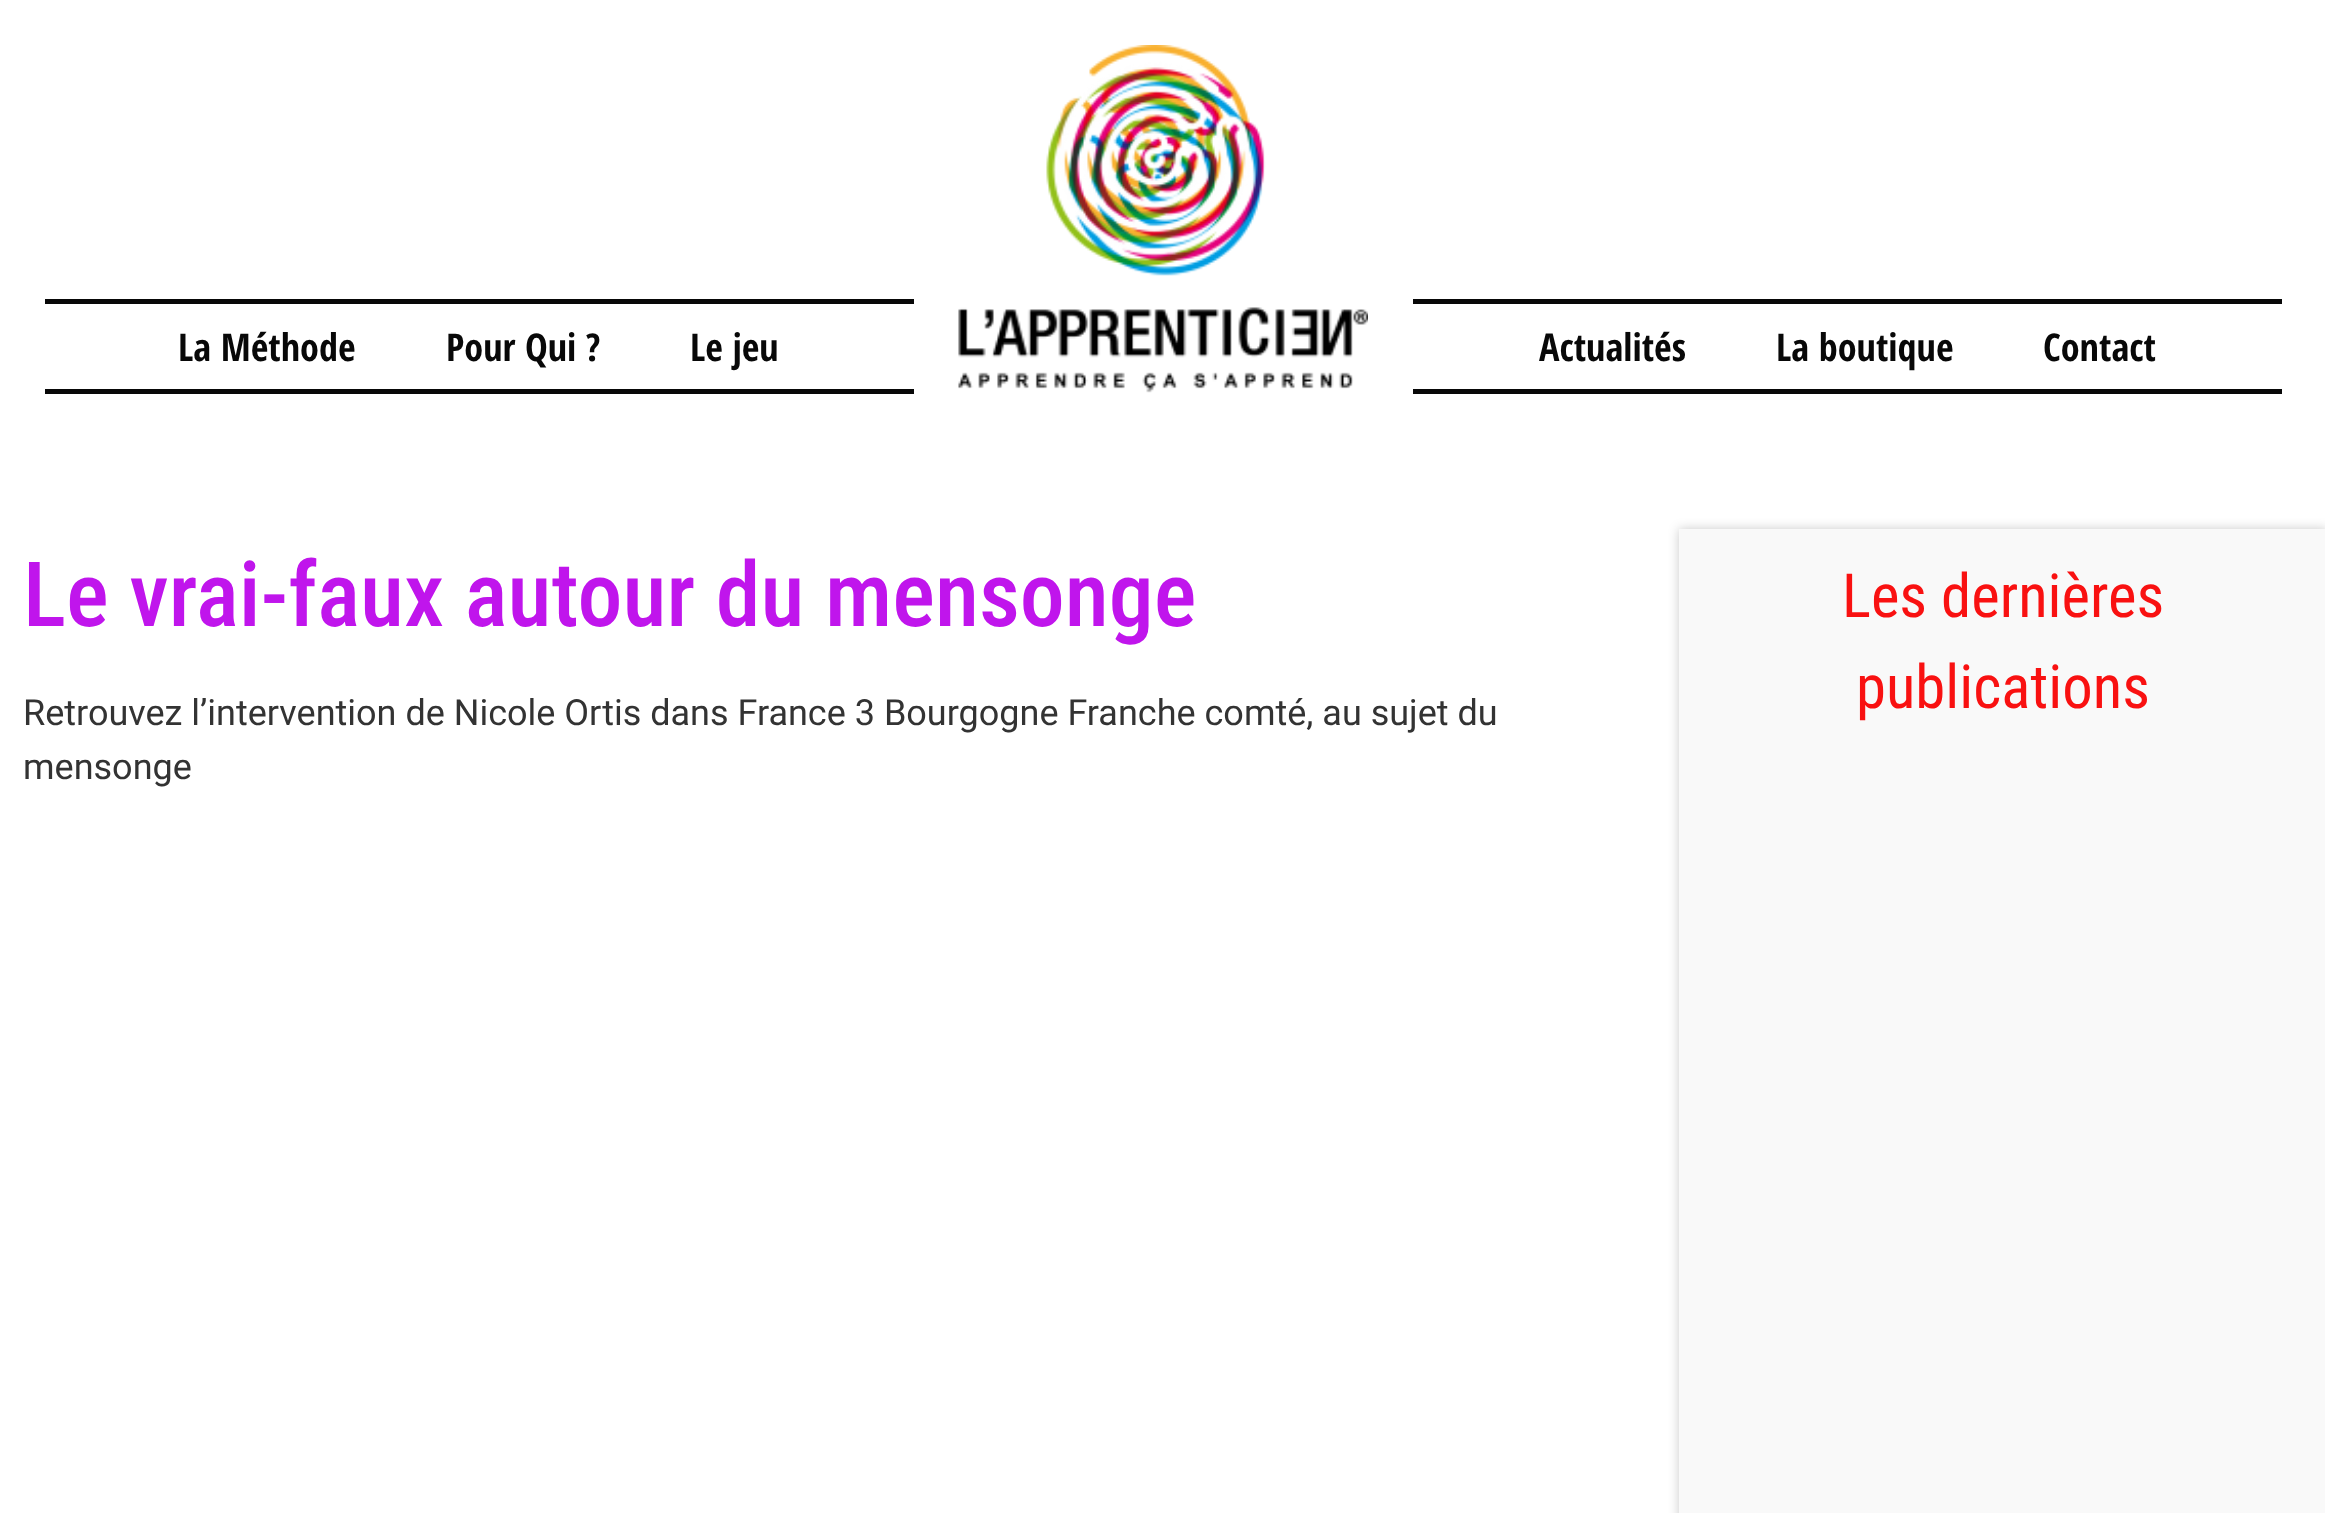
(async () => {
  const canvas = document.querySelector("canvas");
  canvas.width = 2325;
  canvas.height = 1513;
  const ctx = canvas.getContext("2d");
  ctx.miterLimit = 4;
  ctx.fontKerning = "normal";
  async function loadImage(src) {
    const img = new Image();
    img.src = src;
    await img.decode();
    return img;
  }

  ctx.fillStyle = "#ffffff";
  ctx.fillRect(0, 0, 2325, 1513);
  ctx.fillStyle = "#080808";
  ctx.fillRect(45, 299, 869, 5);
  ctx.fillRect(45, 389, 869, 5);
  ctx.drawImage(await loadImage("img/1.png"), 958, 45, 410, 348);
  ctx.fillRect(1413, 299, 869, 5);
  ctx.fillRect(1413, 389, 869, 5);
  ctx.fillStyle = "rgba(0, 0, 0, 0.21)";
  ctx.filter = "blur(5.5px)";
  ctx.beginPath();
  ctx.rect(1679, 529, 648, 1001);
  ctx.fill();
  ctx.filter = "none";
  ctx.fillStyle = "#f9f9f9";
  ctx.fillRect(1679, 529, 646, 984);
  ctx.font = "bold 38.25px Open Sans Condensed";
  ctx.fillStyle = "#080808";
  for (const [text, x, y] of [
    ["La Méthode", 178, 361],
    ["Pour Qui ?", 446, 361],
    ["Le jeu", 690, 361],
    ["Actualités", 1539, 361],
    ["La boutique", 1776, 361],
    ["Contact", 2043, 361],
  ]) {
    ctx.fillText(text, x, y);
  }
  ctx.font = "500 90px Roboto Condensed";
  ctx.fillStyle = "#c015ec";
  ctx.fillText("Le vrai-faux autour du mensonge", 23, 626);
  ctx.font = "36px Roboto";
  ctx.fillStyle = "#333333";
  ctx.fillText("Retrouvez l’intervention de Nicole Ortis dans France 3 Bourgogne Franche comté, au sujet du", 23, 725);
  ctx.fillText("mensonge", 23, 779);
  ctx.font = "60.75px Roboto Condensed";
  ctx.fillStyle = "#f91111";
  ctx.fillText("Les dernières", 1842, 617);
  ctx.fillText("publications", 1856, 708);
})();
